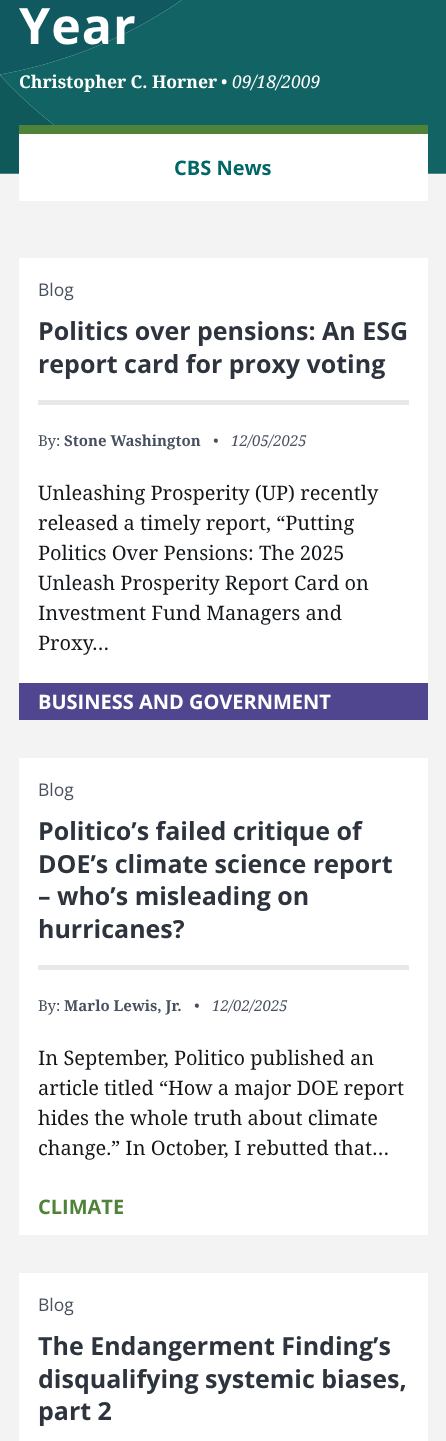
(async () => {
  const canvas = document.querySelector("canvas");
  canvas.width = 446;
  canvas.height = 1441;
  const ctx = canvas.getContext("2d");
  ctx.miterLimit = 4;
  ctx.fontKerning = "normal";
  async function loadImage(src) {
    const img = new Image();
    img.src = src;
    await img.decode();
    return img;
  }

  ctx.fillStyle = "#f3f3f3";
  ctx.fillRect(0, 0, 446, 1441);
  ctx.drawImage(await loadImage("img/1.png"), 0, 0, 446, 174);
  for (const [x, y, w, h, color] of [
    [19, 125, 409, 9, "#4f833a"],
    [19, 134, 409, 67, "#ffffff"],
    [19, 258, 409, 425, "#ffffff"],
    [38, 400, 371, 5, "#e8e8e8"],
    [19, 683, 409, 37, "#50468f"],
    [19, 758, 409, 477, "#ffffff"],
    [38, 965, 371, 5, "#e8e8e8"],
    [19, 1273, 409, 168, "#ffffff"],
  ]) {
    ctx.fillStyle = color;
    ctx.fillRect(x, y, w, h);
  }
  ctx.letterSpacing = "1px";
  ctx.font = "bold 50px Open Sans";
  ctx.fillText("Year", 19, 44);
  ctx.letterSpacing = "0px";
  ctx.font = "bold 17.5px Noto Serif";
  ctx.fillText("Christopher C. Horner", 19, 88);
  ctx.font = "17.5px Noto Serif";
  ctx.fillText("•", 221, 88);
  ctx.font = "italic 17.5px Noto Serif";
  ctx.fillText("09/18/2009", 232, 88);
  ctx.font = "bold 20px Open Sans";
  ctx.fillStyle = "#006666";
  ctx.fillText("CBS News", 174, 175);
  ctx.font = "17.5px Open Sans";
  ctx.fillStyle = "#48505f";
  ctx.fillText("Blog", 38, 296);
  ctx.font = "bold 25px Open Sans";
  ctx.fillStyle = "#2e343e";
  ctx.fillText("Politics over pensions: An ESG", 38, 340);
  ctx.fillText("report card for proxy voting", 38, 373);
  ctx.font = "15px Noto Serif";
  ctx.fillStyle = "#48505f";
  ctx.fillText("By:", 38, 446);
  ctx.font = "bold 15px Noto Serif";
  ctx.fillText("Stone Washington", 64, 446);
  ctx.font = "italic 15px Noto Serif";
  ctx.fillText("•", 213, 446);
  ctx.fillText("12/05/2025", 231, 446);
  ctx.font = "20px Noto Serif";
  ctx.fillStyle = "#14171a";
  for (const [text, x, y] of [
    ["Unleashing Prosperity (UP) recently", 38, 500],
    ["released a timely report, “Putting", 38, 530],
    ["Politics Over Pensions: The 2025", 38, 560],
    ["Unleash Prosperity Report Card on", 38, 590],
    ["Investment Fund Managers and", 38, 620],
    ["Proxy…", 38, 650],
  ]) {
    ctx.fillText(text, x, y);
  }
  ctx.font = "bold 20px Open Sans";
  ctx.fillStyle = "#ffffff";
  ctx.fillText("BUSINESS AND GOVERNMENT", 38, 709);
  ctx.font = "17.5px Open Sans";
  ctx.fillStyle = "#48505f";
  ctx.fillText("Blog", 38, 796);
  ctx.font = "bold 25px Open Sans";
  ctx.fillStyle = "#2e343e";
  for (const [text, x, y] of [
    ["Politico’s failed critique of", 38, 840],
    ["DOE’s climate science report", 38, 873],
    ["– who’s misleading on", 38, 905],
    ["hurricanes?", 38, 938],
  ]) {
    ctx.fillText(text, x, y);
  }
  ctx.font = "15px Noto Serif";
  ctx.fillStyle = "#48505f";
  ctx.fillText("By:", 38, 1011);
  ctx.font = "bold 15px Noto Serif";
  ctx.fillText("Marlo Lewis, Jr.", 64, 1011);
  ctx.font = "italic 15px Noto Serif";
  ctx.fillText("•", 194, 1011);
  ctx.fillText("12/02/2025", 212, 1011);
  ctx.font = "20px Noto Serif";
  ctx.fillStyle = "#14171a";
  for (const [text, x, y] of [
    ["In September, Politico published an", 38, 1065],
    ["article titled “How a major DOE report", 38, 1095],
    ["hides the whole truth about climate", 38, 1125],
    ["change.” In October, I rebutted that…", 38, 1155],
  ]) {
    ctx.fillText(text, x, y);
  }
  ctx.font = "bold 20px Open Sans";
  ctx.fillStyle = "#4f833a";
  ctx.fillText("CLIMATE", 38, 1214);
  ctx.font = "17.5px Open Sans";
  ctx.fillStyle = "#48505f";
  ctx.fillText("Blog", 38, 1311);
  ctx.font = "bold 25px Open Sans";
  ctx.fillStyle = "#2e343e";
  for (const [text, x, y] of [
    ["The Endangerment Finding’s", 38, 1355],
    ["disqualifying systemic biases,", 38, 1388],
    ["part 2", 38, 1420],
  ]) {
    ctx.fillText(text, x, y);
  }
})();
